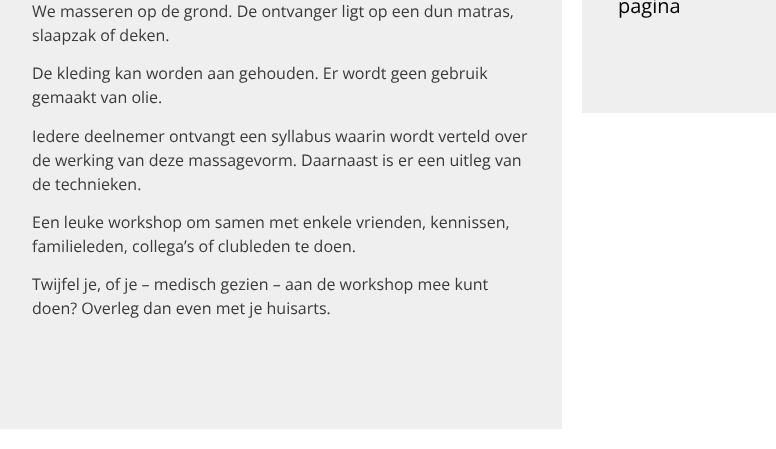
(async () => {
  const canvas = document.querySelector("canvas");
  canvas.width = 776;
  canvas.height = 449;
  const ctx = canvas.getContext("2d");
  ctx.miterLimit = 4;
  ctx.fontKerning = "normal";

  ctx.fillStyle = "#ffffff";
  ctx.fillRect(0, 0, 776, 449);
  ctx.fillStyle = "#efefef";
  ctx.fillRect(0, 0, 562, 429);
  ctx.fillRect(582, 0, 194, 113);
  ctx.font = "16px Open Sans";
  ctx.fillStyle = "#3a3a3a";
  for (const [text, x, y] of [
    ["We masseren op de grond. De ontvanger ligt op een dun matras,", 32, 17],
    ["slaapzak of deken.", 32, 41],
    ["De kleding kan worden aan gehouden. Er wordt geen gebruik", 32, 79],
    ["gemaakt van olie.", 32, 103],
    ["Iedere deelnemer ontvangt een syllabus waarin wordt verteld over", 32, 142],
    ["de werking van deze massagevorm. Daarnaast is er een uitleg van", 32, 166],
    ["de technieken.", 32, 190],
    ["Een leuke workshop om samen met enkele vrienden, kennissen,", 32, 228],
    ["familieleden, collega’s of clubleden te doen.", 32, 252],
    ["Twijfel je, of je – medisch gezien – aan de workshop mee kunt", 32, 290],
    ["doen? Overleg dan even met je huisarts.", 32, 314],
  ]) {
    ctx.fillText(text, x, y);
  }
  ctx.font = "20px Open Sans";
  ctx.fillStyle = "#000000";
  ctx.fillText("pagina", 618, 13);
})();
